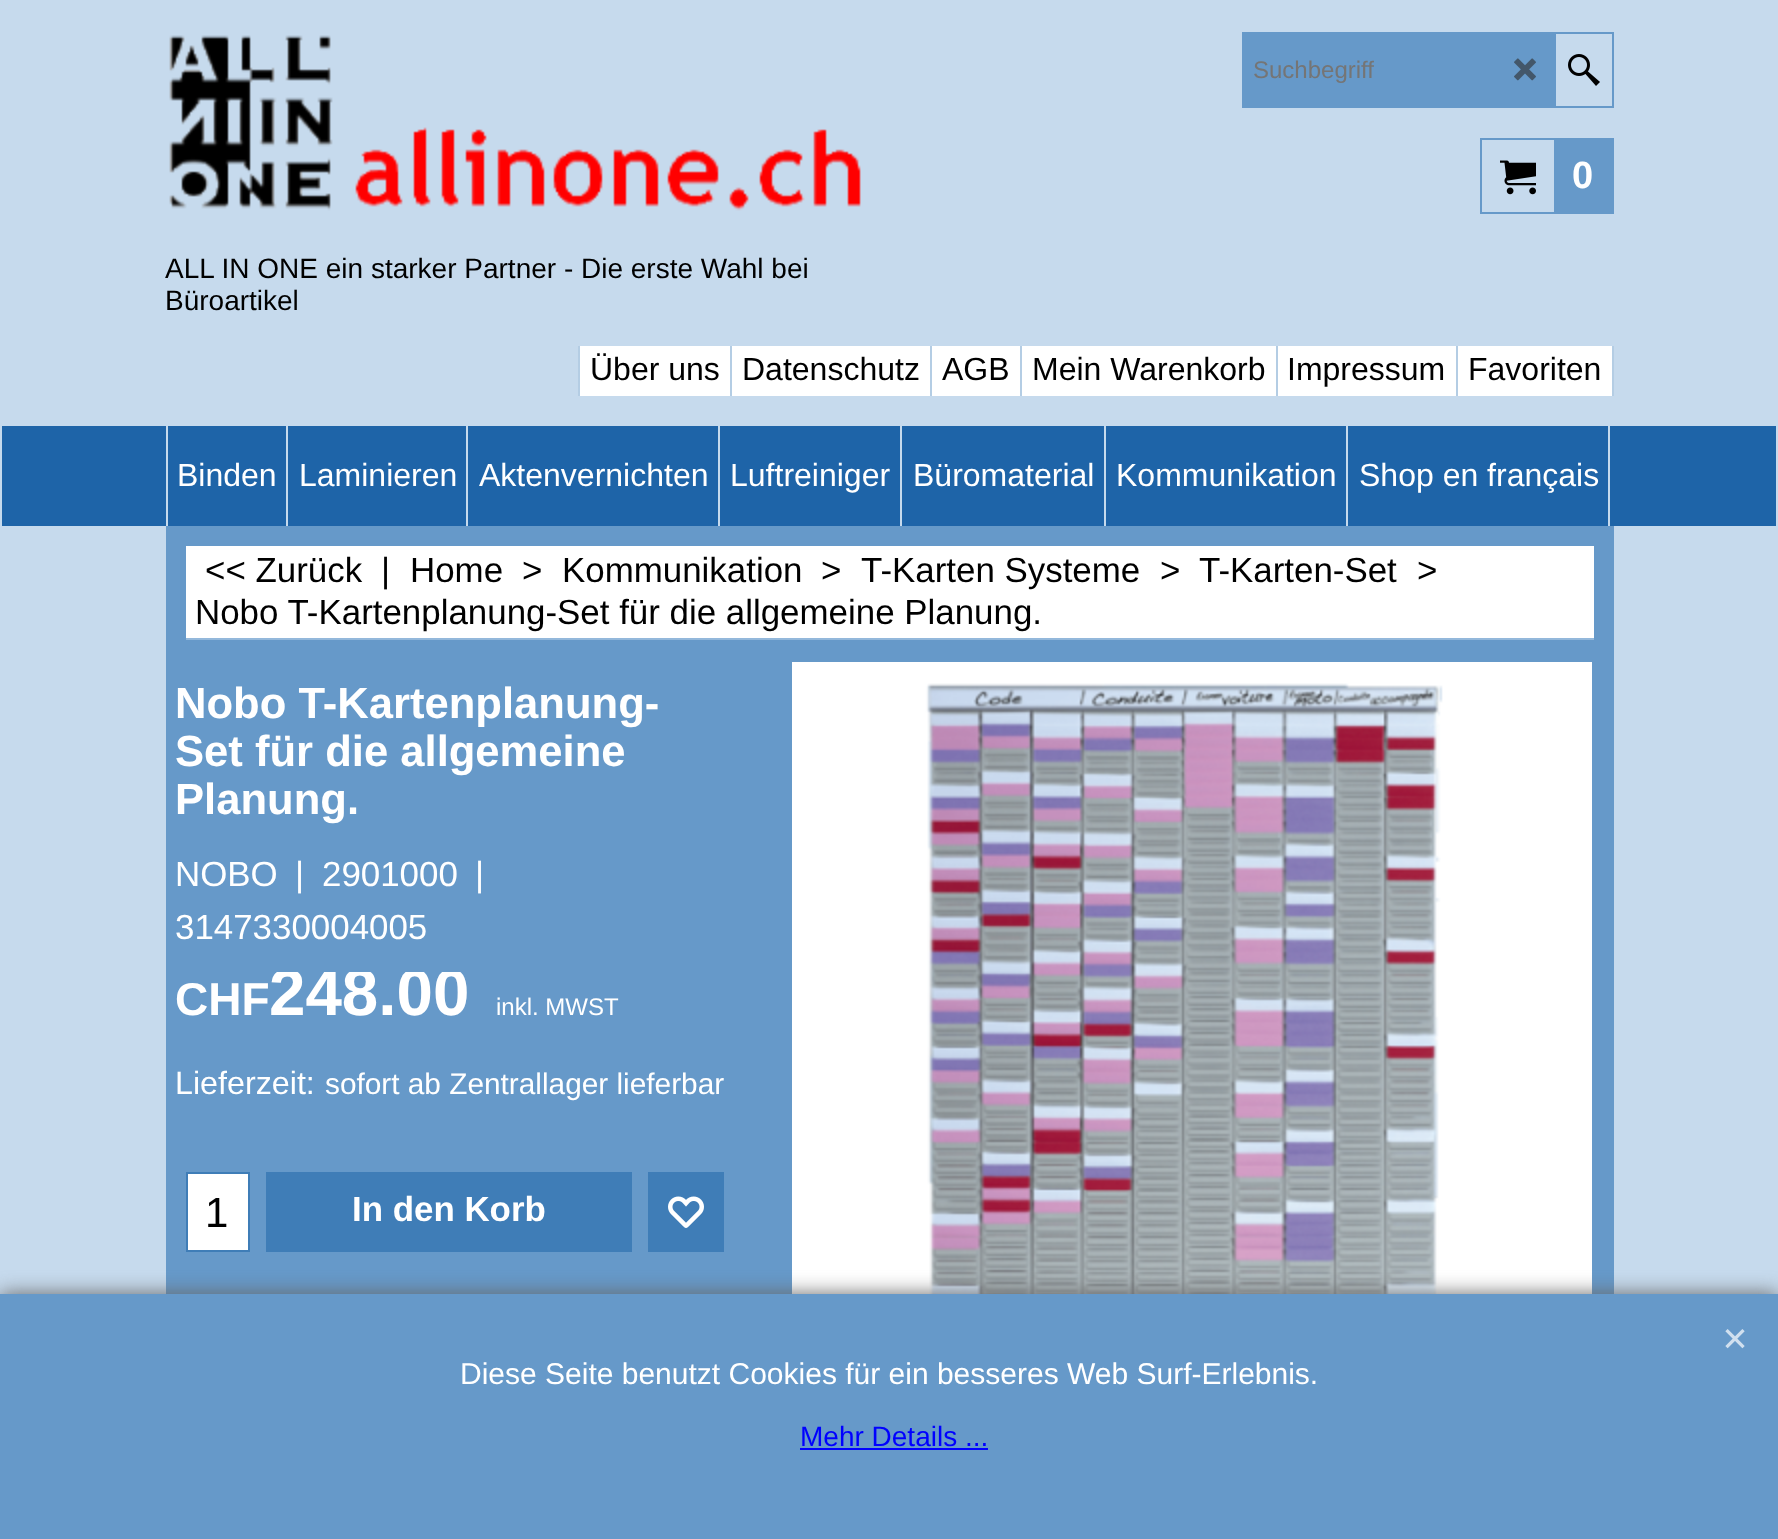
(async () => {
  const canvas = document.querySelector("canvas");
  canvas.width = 1778;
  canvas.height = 1539;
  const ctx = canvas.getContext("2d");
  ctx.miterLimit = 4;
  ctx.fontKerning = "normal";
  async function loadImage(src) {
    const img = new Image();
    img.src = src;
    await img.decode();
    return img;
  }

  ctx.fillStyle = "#c6daed";
  ctx.fillRect(0, 0, 1778, 1539);
  ctx.strokeStyle = "#6699c9";
  ctx.lineWidth = 2;
  ctx.strokeRect(1243, 33, 370, 74);
  ctx.fillStyle = "#6699c9";
  ctx.fillRect(1244, 34, 312, 72);
  ctx.drawImage(await loadImage("img/1.png"), 1514, 58, 22, 23);
  ctx.drawImage(await loadImage("img/2.png"), 1568, 54, 32, 32);
  ctx.fillRect(1556, 138, 58, 76);
  ctx.strokeRect(1481, 139, 74, 74);
  ctx.drawImage(await loadImage("img/3.png"), 1500, 160, 36, 35);
  ctx.drawImage(await loadImage("img/4.png"), 169, 35, 692, 176);
  for (const [x, y, w, h, color] of [
    [580, 346, 1032, 50, "#ffffff"],
    [578, 346, 2, 50, "#b4cde4"],
    [730, 346, 2, 50, "#b4cde4"],
    [930, 346, 2, 50, "#b4cde4"],
    [1020, 346, 2, 50, "#b4cde4"],
    [1276, 346, 2, 50, "#b4cde4"],
    [1456, 346, 2, 50, "#b4cde4"],
    [1612, 346, 2, 50, "#b4cde4"],
    [2, 426, 1774, 100, "#1e64a8"],
    [166, 426, 2, 100, "#c6daed"],
    [286, 426, 2, 100, "#c6daed"],
    [466, 426, 2, 100, "#c6daed"],
    [718, 426, 2, 100, "#c6daed"],
    [900, 426, 2, 100, "#c6daed"],
    [1104, 426, 2, 100, "#c6daed"],
    [1346, 426, 2, 100, "#c6daed"],
    [1608, 426, 2, 100, "#c6daed"],
    [166, 526, 1448, 768, "#6699c9"],
    [186, 546, 1408, 92, "#ffffff"],
    [186, 638, 1408, 2, "#93b8db"],
    [186, 1172, 64, 80, "#3f7db7"],
    [188, 1174, 60, 76, "#ffffff"],
    [266, 1172, 366, 80, "#3f7db7"],
    [648, 1172, 76, 80, "#3f7db7"],
  ]) {
    ctx.fillStyle = color;
    ctx.fillRect(x, y, w, h);
  }
  ctx.drawImage(await loadImage("img/5.png"), 668, 1196, 36, 32);
  ctx.drawImage(await loadImage("img/6.png"), 792, 662, 800, 632);
  ctx.fillStyle = "#666666";
  ctx.filter = "blur(10px)";
  ctx.beginPath();
  ctx.rect(0, 1294, 1778, 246);
  ctx.fill();
  ctx.filter = "none";
  ctx.fillStyle = "#6699c9";
  ctx.fillRect(0, 1294, 1778, 245);
  ctx.drawImage(await loadImage("img/7.png"), 1725, 1329, 20, 20);
  ctx.fillStyle = "#0000ff";
  ctx.fillRect(800, 1448, 188, 2);
  ctx.font = "24px Liberation Sans";
  ctx.fillStyle = "#757575";
  ctx.fillText("Suchbegriff", 1253, 78);
  ctx.font = "bold 38px Liberation Sans";
  ctx.fillStyle = "#ffffff";
  ctx.fillText("0", 1572, 188);
  ctx.font = "28px Liberation Sans";
  ctx.fillStyle = "#000000";
  ctx.fillText("ALL IN ONE ein starker Partner - Die erste Wahl bei", 165, 278);
  ctx.fillText("Büroartikel", 165, 310);
  ctx.font = "32px Liberation Sans";
  for (const [text, x, y] of [
    ["Über uns", 590, 380],
    ["Datenschutz", 742, 380],
    ["AGB", 942, 380],
    ["Mein Warenkorb", 1032, 380],
    ["Impressum", 1287, 380],
    ["Favoriten", 1468, 380],
  ]) {
    ctx.fillText(text, x, y);
  }
  ctx.fillStyle = "#ffffff";
  for (const [text, x, y] of [
    ["Binden", 177, 486],
    ["Laminieren", 299, 486],
    ["Aktenvernichten", 479, 486],
    ["Luftreiniger", 730, 486],
    ["Büromaterial", 913, 486],
    ["Kommunikation", 1116, 486],
    ["Shop en français", 1359, 486],
  ]) {
    ctx.fillText(text, x, y);
  }
  ctx.font = "34.9px Liberation Sans";
  ctx.fillStyle = "#000000";
  for (const [text, x, y] of [
    ["<< Zurück", 205, 582],
    ["|", 381, 582],
    ["Home", 410, 582],
    [">", 522, 582],
    ["Kommunikation", 562, 582],
    [">", 821, 582],
    ["T-Karten Systeme", 861, 582],
    [">", 1160, 582],
    ["T-Karten-Set", 1199, 582],
    [">", 1417, 582],
    ["Nobo T-Kartenplanung-Set für die allgemeine Planung.", 195, 624],
  ]) {
    ctx.fillText(text, x, y);
  }
  ctx.font = "bold 43.6px Liberation Sans";
  ctx.fillStyle = "#ffffff";
  for (const [text, x, y] of [
    ["Nobo T-Kartenplanung-", 175, 718],
    ["Set für die allgemeine", 175, 766],
    ["Planung.", 175, 814],
  ]) {
    ctx.fillText(text, x, y);
  }
  ctx.font = "34.9px Liberation Sans";
  for (const [text, x, y] of [
    ["NOBO", 175, 886],
    ["|", 295, 886],
    ["2901000", 322, 886],
    ["|", 475, 886],
    ["3147330004005", 175, 939],
  ]) {
    ctx.fillText(text, x, y);
  }
  ctx.font = "bold 46px Liberation Sans";
  ctx.fillText("CHF", 175, 1015);
  ctx.save();
  ctx.beginPath();
  ctx.rect(166, 972, 578, 58);
  ctx.clip();
  ctx.font = "bold 65.5px Liberation Sans";
  ctx.fillText("248.00", 269, 1015);
  ctx.restore();
  ctx.font = "24px Liberation Sans";
  ctx.fillText("inkl. MWST", 496, 1015);
  ctx.font = "32.25px Liberation Sans";
  ctx.fillText("Lieferzeit:", 175, 1094);
  ctx.font = "29.8px Liberation Sans";
  ctx.fillText("sofort ab Zentrallager lieferbar", 325, 1094);
  ctx.font = "42px Liberation Sans";
  ctx.fillStyle = "#000000";
  ctx.fillText("1", 205, 1227);
  ctx.font = "bold 34.9px Liberation Sans";
  ctx.fillStyle = "#ffffff";
  ctx.fillText("In den Korb", 352, 1221);
  ctx.font = "30px Liberation Sans";
  ctx.fillText("Diese Seite benutzt Cookies für ein besseres Web Surf-Erlebnis.", 460, 1384);
  ctx.font = "28px Liberation Sans";
  ctx.fillStyle = "#0000ff";
  ctx.fillText("Mehr Details ...", 800, 1446);
})();
